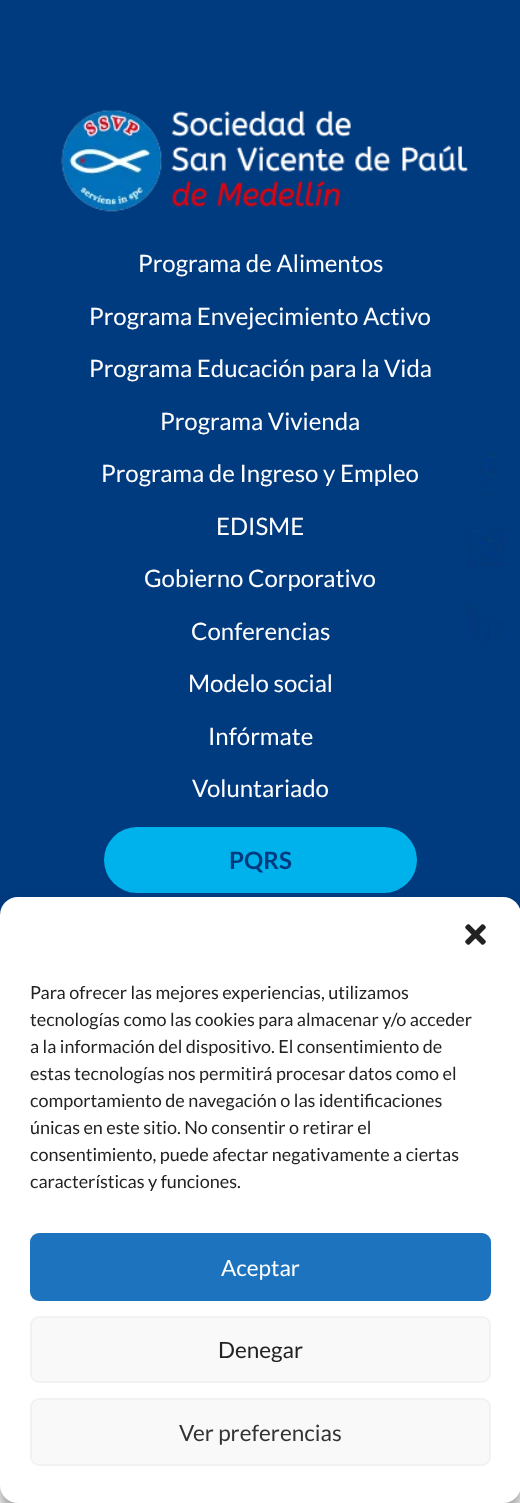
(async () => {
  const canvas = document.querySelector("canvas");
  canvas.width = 520;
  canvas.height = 1503;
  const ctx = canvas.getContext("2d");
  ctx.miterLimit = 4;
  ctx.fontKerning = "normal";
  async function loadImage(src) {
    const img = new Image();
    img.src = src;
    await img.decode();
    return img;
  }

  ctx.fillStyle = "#ffffff";
  ctx.fillRect(0, 0, 520, 1503);
  ctx.fillStyle = "#003b80";
  ctx.fillRect(0, 0, 520, 915);
  ctx.drawImage(await loadImage("img/1.png"), 61, 110, 407, 102);
  ctx.fillStyle = "#00b2ec";
  ctx.beginPath();
  ctx.roundRect(104, 827, 313, 66, 33);
  ctx.fill();
  ctx.drawImage(await loadImage("img/2.png"), 477, 453, 22, 42);
  ctx.drawImage(await loadImage("img/3.png"), 467, 528, 39, 40);
  ctx.drawImage(await loadImage("img/4.png"), 466, 601, 41, 42);
  ctx.fillStyle = "rgba(0, 0, 0, 0.23)";
  ctx.filter = "blur(4.5px)";
  ctx.beginPath();
  ctx.roundRect(0, 906, 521, 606, 18);
  ctx.fill();
  ctx.filter = "none";
  ctx.fillStyle = "rgba(0, 0, 0, 0.19)";
  ctx.filter = "blur(15px)";
  ctx.beginPath();
  ctx.roundRect(0, 912, 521, 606, 18);
  ctx.fill();
  ctx.filter = "none";
  ctx.fillStyle = "#ffffff";
  ctx.beginPath();
  ctx.roundRect(0, 897, 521, 606, 18);
  ctx.fill();
  ctx.drawImage(await loadImage("img/5.png"), 465, 924, 21, 21);
  ctx.fillStyle = "#1e73be";
  ctx.beginPath();
  ctx.roundRect(31, 1234, 459, 66, 8);
  ctx.fill();
  ctx.strokeStyle = "#1e73be";
  ctx.lineWidth = 2;
  ctx.stroke();
  ctx.fillStyle = "#f9f9f9";
  ctx.beginPath();
  ctx.roundRect(31, 1317, 459, 65, 8);
  ctx.fill();
  ctx.strokeStyle = "#f2f2f2";
  ctx.stroke();
  ctx.beginPath();
  ctx.roundRect(31, 1399, 459, 66, 8);
  ctx.fill();
  ctx.stroke();
  ctx.font = "24px Lato";
  ctx.fillStyle = "#ffffff";
  for (const [text, x, y] of [
    ["Programa de Alimentos", 138, 272],
    ["Programa Envejecimiento Activo", 89, 325],
    ["Programa Educación para la Vida", 89, 377],
    ["Programa Vivienda", 160, 430],
    ["Programa de Ingreso y Empleo", 101, 482],
    ["EDISME", 216, 535],
    ["Gobierno Corporativo", 144, 587],
    ["Conferencias", 191, 640],
    ["Modelo social", 188, 692],
    ["Infórmate", 208, 745],
    ["Voluntariado", 192, 797],
  ]) {
    ctx.fillText(text, x, y);
  }
  ctx.font = "bold 24px Lato";
  ctx.fillStyle = "#003b80";
  ctx.fillText("PQRS", 229, 869);
  ctx.font = "18px Lato";
  ctx.fillStyle = "#222222";
  for (const [text, x, y] of [
    ["Para ofrecer las mejores experiencias, utilizamos", 30, 999],
    ["tecnologías como las cookies para almacenar y/o acceder", 30, 1026],
    ["a la información del dispositivo. El consentimiento de", 30, 1053],
    ["estas tecnologías nos permitirá procesar datos como el", 30, 1080],
    ["comportamiento de navegación o las identificaciones", 30, 1107],
    ["únicas en este sitio. No consentir o retirar el", 30, 1134],
    ["consentimiento, puede afectar negativamente a ciertas", 30, 1161],
    ["características y funciones.", 30, 1188],
  ]) {
    ctx.fillText(text, x, y);
  }
  ctx.font = "22.5px Lato";
  ctx.fillStyle = "#ffffff";
  ctx.fillText("Aceptar", 221, 1276);
  ctx.fillStyle = "#222222";
  ctx.fillText("Denegar", 218, 1358);
  ctx.fillStyle = "#333333";
  ctx.fillText("Ver preferencias", 179, 1441);
})();
